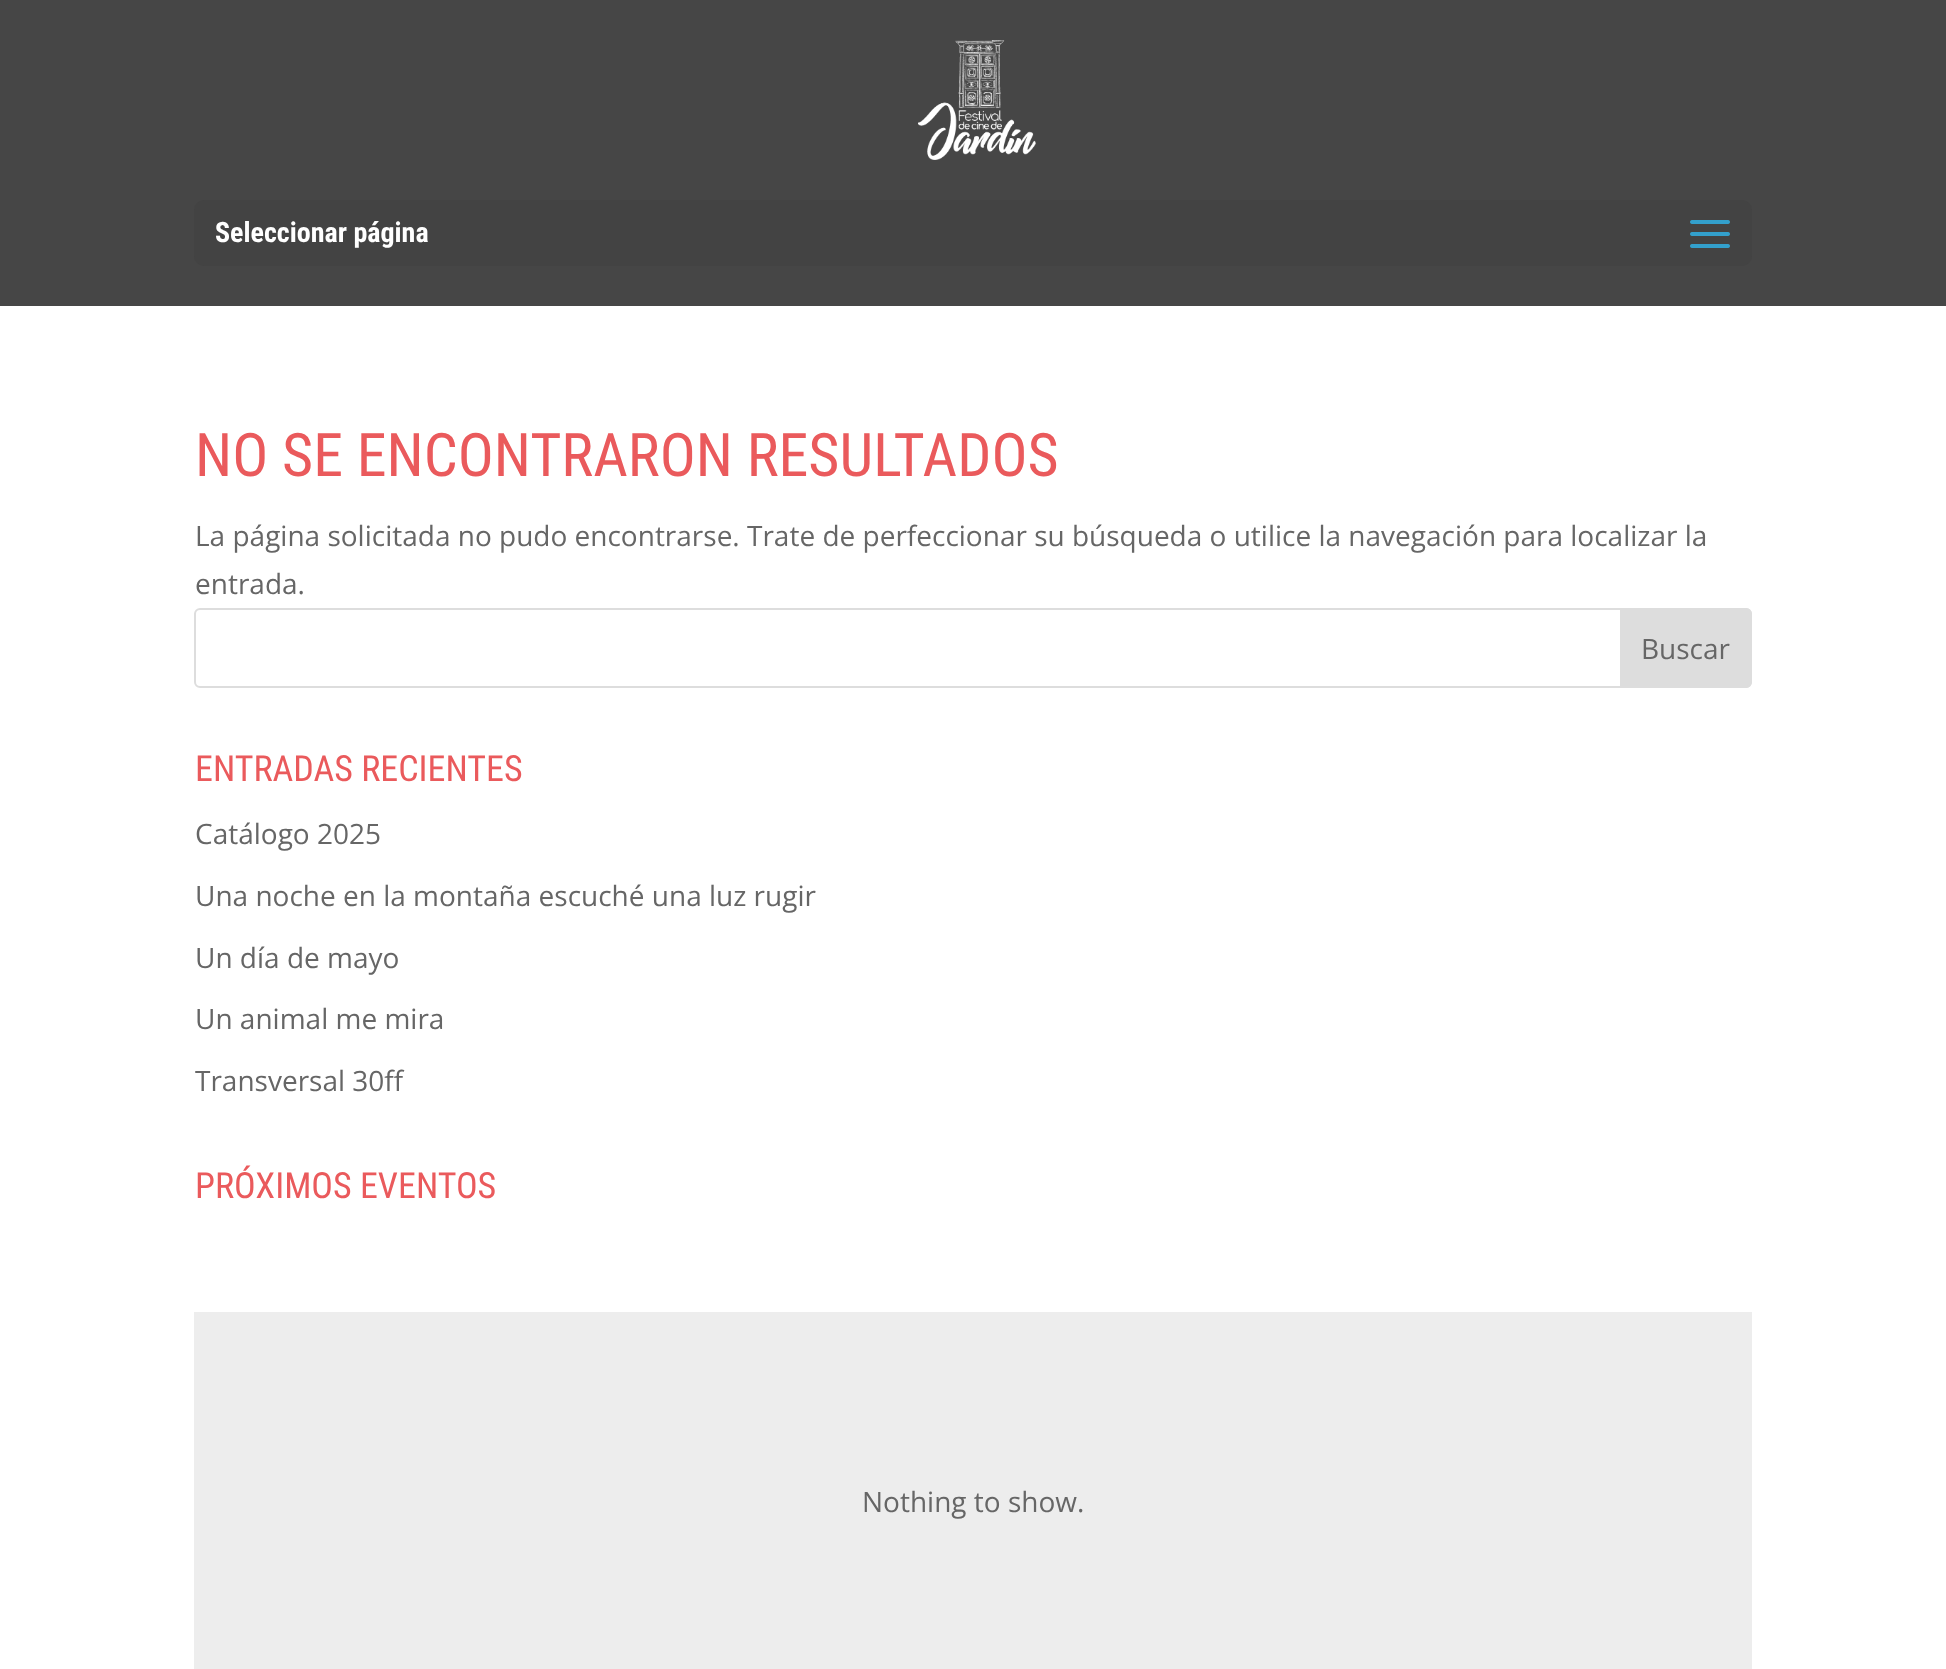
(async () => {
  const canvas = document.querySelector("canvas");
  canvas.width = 1946;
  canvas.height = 1669;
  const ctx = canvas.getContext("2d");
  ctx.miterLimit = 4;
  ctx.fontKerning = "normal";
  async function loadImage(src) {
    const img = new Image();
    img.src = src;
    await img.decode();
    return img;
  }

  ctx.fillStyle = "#ffffff";
  ctx.fillRect(0, 0, 1946, 1669);
  ctx.fillStyle = "#464646";
  ctx.fillRect(0, 0, 1946, 306);
  ctx.drawImage(await loadImage("img/1.png"), 918, 40, 118, 120);
  ctx.fillStyle = "#434343";
  ctx.beginPath();
  ctx.roundRect(194, 200, 1558, 66, 10);
  ctx.fill();
  ctx.drawImage(await loadImage("img/2.png"), 1690, 220, 40, 28);
  ctx.fillStyle = "#ededed";
  ctx.fillRect(194, 1312, 1558, 357);
  ctx.beginPath();
  ctx.roundRect(195, 609, 1556, 78, 5);
  ctx.strokeStyle = "#dddddd";
  ctx.lineWidth = 2;
  ctx.stroke();
  ctx.fillStyle = "#dddddd";
  ctx.beginPath();
  ctx.roundRect(1621, 609, 130, 78, [0, 5, 5, 0]);
  ctx.fill();
  ctx.stroke();
  ctx.font = "bold 28px Roboto Condensed";
  ctx.fillStyle = "#ffffff";
  ctx.fillText("Seleccionar página", 215, 242);
  ctx.font = "60px Roboto Condensed";
  ctx.fillStyle = "#ea5a5c";
  ctx.fillText("NO SE ENCONTRARON RESULTADOS", 195, 476);
  ctx.font = "28px Open Sans";
  ctx.fillStyle = "#666666";
  for (const [text, x, y] of [
    ["La página solicitada no pudo encontrarse. Trate de perfeccionar su búsqueda o utilice la navegación para localizar la", 195, 546],
    ["entrada.", 195, 594],
    ["Buscar", 1641, 659],
  ]) {
    ctx.fillText(text, x, y);
  }
  ctx.font = "36px Roboto Condensed";
  ctx.fillStyle = "#ea5a5c";
  ctx.fillText("ENTRADAS RECIENTES", 195, 781);
  ctx.font = "28px Open Sans";
  ctx.fillStyle = "#666666";
  for (const [text, x, y] of [
    ["Catálogo 2025", 195, 844],
    ["Una noche en la montaña escuché una luz rugir", 195, 906],
    ["Un día de mayo", 195, 968],
    ["Un animal me mira", 195, 1029],
    ["Transversal 30ff", 195, 1091],
  ]) {
    ctx.fillText(text, x, y);
  }
  ctx.font = "36px Roboto Condensed";
  ctx.fillStyle = "#ea5a5c";
  ctx.fillText("PRÓXIMOS EVENTOS", 195, 1198);
  ctx.font = "28px Open Sans";
  ctx.fillStyle = "#666666";
  ctx.fillText("Nothing to show.", 862, 1512);
})();
